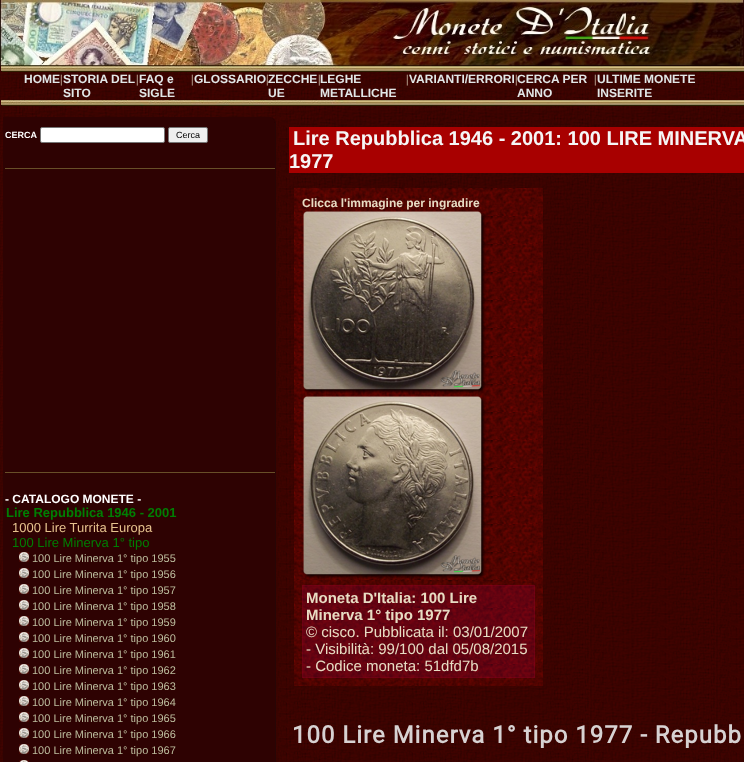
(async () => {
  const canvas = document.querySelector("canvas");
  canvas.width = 744;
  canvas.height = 762;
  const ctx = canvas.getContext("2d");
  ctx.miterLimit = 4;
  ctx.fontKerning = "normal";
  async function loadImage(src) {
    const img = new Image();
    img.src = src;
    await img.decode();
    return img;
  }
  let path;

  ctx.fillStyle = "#ffffff";
  ctx.fillRect(0, 0, 744, 762);
  ctx.drawImage(await loadImage("img/1.png"), 0, 66, 744, 696);
  ctx.drawImage(await loadImage("img/2.png"), 0, 0, 744, 66);
  ctx.drawImage(await loadImage("img/3.png"), 1, 66, 743, 6);
  ctx.drawImage(await loadImage("img/3.png"), 1, 100, 743, 6);
  ctx.fillStyle = "#2e0202";
  path = new Path2D("M3 117H270C273 117 275 120 275 123V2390C275 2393 273 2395 270 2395H3Z");
  ctx.fill(path);
  ctx.fillStyle = "#280505";
  path = new Path2D("M3 117H270C273 117 276 120 276 123V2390C276 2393 273 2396 270 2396H3ZM3 117H270C273 117 275 120 275 123V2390C275 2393 273 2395 270 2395H3Z");
  ctx.fill(path, "evenodd");
  ctx.fillStyle = "#ffffff";
  ctx.beginPath();
  ctx.roundRect(40.5, 127.5, 124, 15, 1.5);
  ctx.fill();
  ctx.strokeStyle = "#767676";
  ctx.stroke();
  ctx.fillStyle = "#efefef";
  ctx.beginPath();
  ctx.roundRect(168.5, 127.5, 39, 15, 1.5);
  ctx.fill();
  ctx.stroke();
  ctx.fillStyle = "#684f28";
  ctx.fillRect(5, 168, 270, 1);
  ctx.fillRect(5, 472, 270, 1);
  ctx.drawImage(await loadImage("img/4.png"), 19, 552, 10, 10);
  ctx.drawImage(await loadImage("img/4.png"), 19, 568, 10, 10);
  ctx.drawImage(await loadImage("img/4.png"), 19, 584, 10, 10);
  ctx.drawImage(await loadImage("img/4.png"), 19, 600, 10, 10);
  ctx.drawImage(await loadImage("img/4.png"), 19, 616, 10, 10);
  ctx.drawImage(await loadImage("img/4.png"), 19, 632, 10, 10);
  ctx.drawImage(await loadImage("img/4.png"), 19, 648, 10, 10);
  ctx.drawImage(await loadImage("img/4.png"), 19, 664, 10, 10);
  ctx.drawImage(await loadImage("img/4.png"), 19, 680, 10, 10);
  ctx.drawImage(await loadImage("img/4.png"), 19, 696, 10, 10);
  ctx.drawImage(await loadImage("img/4.png"), 19, 712, 10, 10);
  ctx.drawImage(await loadImage("img/4.png"), 19, 728, 10, 10);
  ctx.drawImage(await loadImage("img/4.png"), 19, 744, 10, 10);
  ctx.drawImage(await loadImage("img/5.png"), 19, 760, 10, 2);
  ctx.fillStyle = "#a80000";
  ctx.fillRect(289, 127, 455, 46);
  ctx.drawImage(await loadImage("img/6.png"), 294, 188, 249, 498);
  ctx.drawImage(await loadImage("img/7.png"), 303, 211, 182, 182);
  ctx.drawImage(await loadImage("img/8.png"), 303, 396, 182, 182);
  ctx.fillStyle = "rgba(180, 0, 81, 0.2)";
  ctx.fillRect(302, 585, 233, 93);
  ctx.strokeStyle = "rgba(170, 0, 41, 0.2)";
  ctx.strokeRect(302.5, 585.5, 232, 92);
  ctx.font = "bold 12px Liberation Sans";
  ctx.fillStyle = "#e2e7e7";
  ctx.fillText("HOME", 24, 83);
  ctx.font = "12px Liberation Serif";
  ctx.fillStyle = "#e8dcc3";
  ctx.fillText("|", 60, 83);
  ctx.font = "bold 12px Liberation Sans";
  ctx.fillStyle = "#e2e7e7";
  ctx.fillText("STORIA DEL", 63, 83);
  ctx.fillText("SITO", 63, 97);
  ctx.font = "12px Liberation Serif";
  ctx.fillStyle = "#e8dcc3";
  ctx.fillText("|", 136, 83);
  ctx.font = "bold 12px Liberation Sans";
  ctx.fillStyle = "#e2e7e7";
  ctx.fillText("FAQ e", 139, 83);
  ctx.fillText("SIGLE", 139, 97);
  ctx.font = "12px Liberation Serif";
  ctx.fillStyle = "#e8dcc3";
  ctx.fillText("|", 191, 83);
  ctx.font = "bold 12px Liberation Sans";
  ctx.fillStyle = "#e2e7e7";
  ctx.fillText("GLOSSARIO", 194, 83);
  ctx.font = "12px Liberation Serif";
  ctx.fillStyle = "#e8dcc3";
  ctx.fillText("|", 266, 83);
  ctx.font = "bold 12px Liberation Sans";
  ctx.fillStyle = "#e2e7e7";
  ctx.fillText("ZECCHE", 268, 83);
  ctx.fillText("UE", 268, 97);
  ctx.font = "12px Liberation Serif";
  ctx.fillStyle = "#e8dcc3";
  ctx.fillText("|", 318, 83);
  ctx.font = "bold 12px Liberation Sans";
  ctx.fillStyle = "#e2e7e7";
  ctx.fillText("LEGHE", 320, 83);
  ctx.fillText("METALLICHE", 320, 97);
  ctx.font = "12px Liberation Serif";
  ctx.fillStyle = "#e8dcc3";
  ctx.fillText("|", 406, 83);
  ctx.font = "bold 12px Liberation Sans";
  ctx.fillStyle = "#e2e7e7";
  ctx.fillText("VARIANTI/ERRORI", 409, 83);
  ctx.font = "12px Liberation Serif";
  ctx.fillStyle = "#e8dcc3";
  ctx.fillText("|", 515, 83);
  ctx.font = "bold 12px Liberation Sans";
  ctx.fillStyle = "#e2e7e7";
  ctx.fillText("CERCA PER", 517, 83);
  ctx.fillText("ANNO", 517, 97);
  ctx.font = "12px Liberation Serif";
  ctx.fillStyle = "#e8dcc3";
  ctx.fillText("|", 594, 83);
  ctx.font = "bold 12px Liberation Sans";
  ctx.fillStyle = "#e2e7e7";
  ctx.fillText("ULTIME MONETE", 597, 83);
  ctx.fillText("INSERITE", 597, 97);
  ctx.font = "bold 9px Liberation Sans";
  ctx.fillStyle = "#ffffff";
  ctx.fillText("CERCA", 5, 138);
  ctx.font = "9px Liberation Sans";
  ctx.fillStyle = "#000000";
  ctx.fillText("Cerca", 176, 138);
  ctx.font = "bold 12px Liberation Sans";
  ctx.fillStyle = "#ffffff";
  ctx.fillText("- CATALOGO MONETE -", 5, 503);
  ctx.font = "bold 13px Liberation Sans";
  ctx.fillStyle = "#007e03";
  ctx.fillText("Lire Repubblica 1946 - 2001", 6, 517);
  ctx.font = "13px Liberation Sans";
  ctx.fillStyle = "#e6c28e";
  ctx.fillText("1000 Lire Turrita Europa", 12, 532);
  ctx.fillStyle = "#007e03";
  ctx.fillText("100 Lire Minerva 1° tipo", 12, 547);
  ctx.font = "11px Liberation Sans";
  ctx.fillStyle = "#bdbd9e";
  for (const [text, x, y] of [
    ["100 Lire Minerva 1° tipo 1955", 32, 562],
    ["100 Lire Minerva 1° tipo 1956", 32, 578],
    ["100 Lire Minerva 1° tipo 1957", 32, 594],
    ["100 Lire Minerva 1° tipo 1958", 32, 610],
    ["100 Lire Minerva 1° tipo 1959", 32, 626],
    ["100 Lire Minerva 1° tipo 1960", 32, 642],
    ["100 Lire Minerva 1° tipo 1961", 32, 658],
    ["100 Lire Minerva 1° tipo 1962", 32, 674],
    ["100 Lire Minerva 1° tipo 1963", 32, 690],
    ["100 Lire Minerva 1° tipo 1964", 32, 706],
    ["100 Lire Minerva 1° tipo 1965", 32, 722],
    ["100 Lire Minerva 1° tipo 1966", 32, 738],
    ["100 Lire Minerva 1° tipo 1967", 32, 754],
  ]) {
    ctx.fillText(text, x, y);
  }
  ctx.font = "bold 20px Liberation Sans";
  ctx.fillStyle = "#f6f6f6";
  ctx.fillText("Lire Repubblica 1946 - 2001: 100 LIRE MINERVA", 293, 145);
  ctx.fillText("1977", 289, 168);
  ctx.font = "bold 12px Liberation Sans";
  ctx.fillStyle = "#e8dcc3";
  ctx.fillText("Clicca l'immagine per ingradire", 302, 207);
  ctx.font = "bold 15px Liberation Sans";
  ctx.fillText("Moneta D'Italia: 100 Lire", 306, 603);
  ctx.fillText("Minerva 1° tipo 1977", 306, 620);
  ctx.font = "15px Liberation Sans";
  for (const [text, x, y] of [
    ["© cisco. Pubblicata il: 03/01/2007", 306, 637],
    ["- Visibilità: 99/100 dal 05/08/2015", 306, 654],
    ["- Codice moneta: 51dfd7b", 306, 671],
  ]) {
    ctx.fillText(text, x, y);
  }
  ctx.letterSpacing = "1px";
  ctx.font = "bold 24px Roboto";
  ctx.fillStyle = "#d7d2d2";
  ctx.fillText("100 Lire Minerva 1° tipo 1977 - Repubb", 292, 743);
})();
